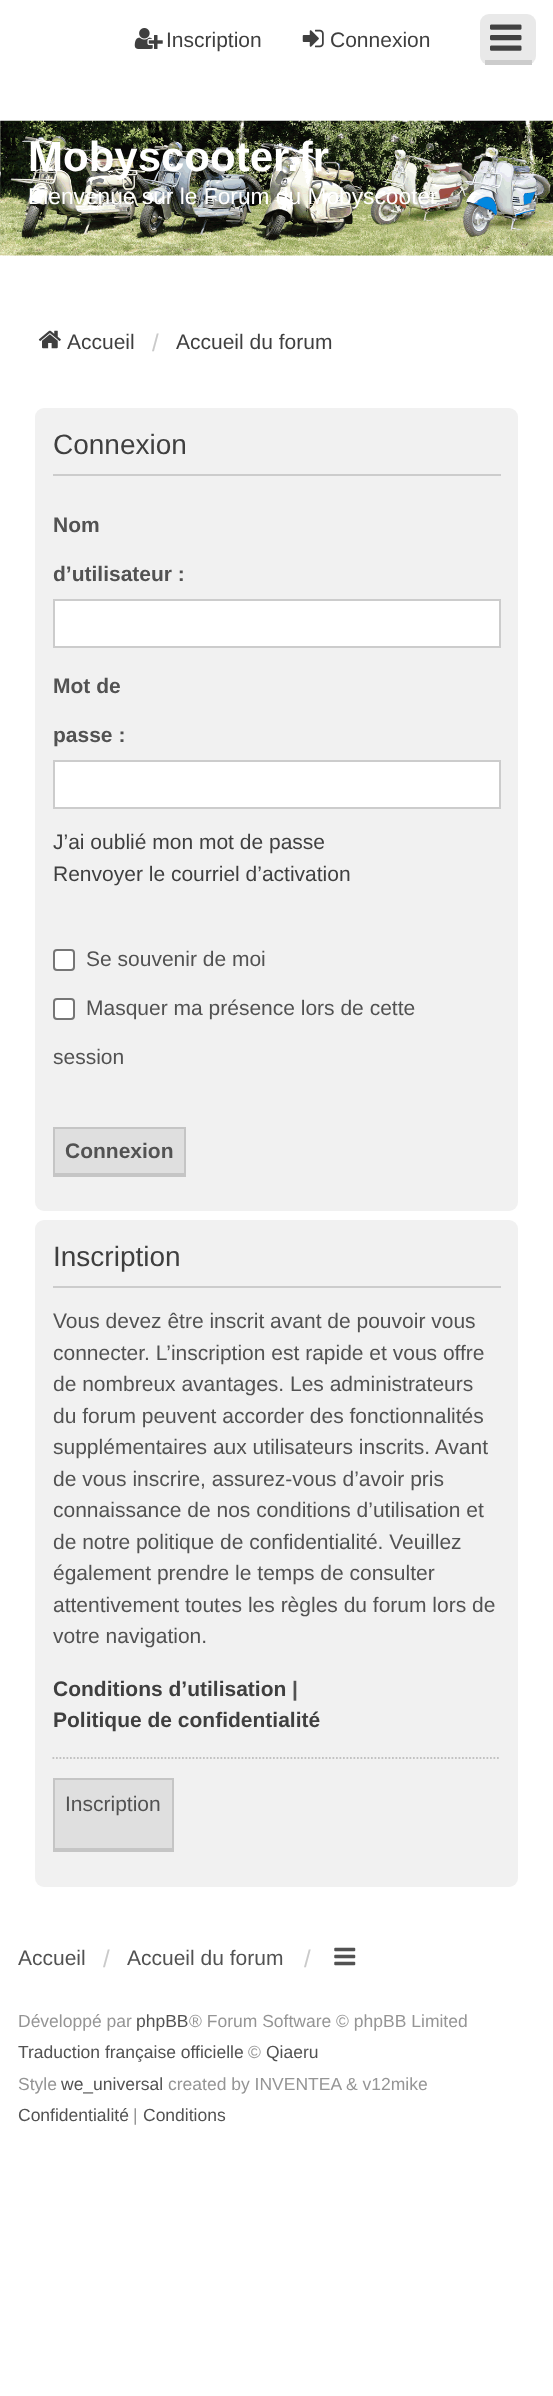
(async () => {
  const canvas = document.querySelector("canvas");
  canvas.width = 553;
  canvas.height = 2396;
  const ctx = canvas.getContext("2d");
  ctx.miterLimit = 4;
  ctx.fontKerning = "normal";
  async function loadImage(src) {
    const img = new Image();
    img.src = src;
    await img.decode();
    return img;
  }
  let path;

  ctx.fillStyle = "#ffffff";
  ctx.fillRect(0, 0, 553, 2396);
  ctx.drawImage(await loadImage("img/1.png"), 134, 28, 29, 21);
  ctx.drawImage(await loadImage("img/2.png"), 302, 29, 22, 19);
  ctx.fillStyle = "#e9e9e9";
  ctx.beginPath();
  ctx.roundRect(480, 14, 56, 51, 9);
  ctx.fill();
  ctx.fillStyle = "#cccccc";
  ctx.fillRect(485, 60, 47, 5);
  ctx.drawImage(await loadImage("img/3.png"), 490, 24, 32, 27);
  ctx.drawImage(await loadImage("img/4.png"), 0, 120, 553, 136);
  ctx.drawImage(await loadImage("img/5.png"), 38, 330, 23, 19);
  ctx.fillStyle = "#f1f1f1";
  ctx.beginPath();
  ctx.roundRect(35, 408, 483, 803, 9);
  ctx.fill();
  ctx.fillStyle = "#cccccc";
  ctx.fillRect(53, 474, 448, 2);
  ctx.fillStyle = "#ffffff";
  ctx.beginPath();
  ctx.rect(54, 600, 446, 47);
  ctx.fill();
  ctx.strokeStyle = "#cccccc";
  ctx.lineWidth = 2;
  ctx.stroke();
  ctx.beginPath();
  ctx.rect(54, 761, 446, 47);
  ctx.fill();
  ctx.stroke();
  ctx.beginPath();
  ctx.roundRect(54, 950, 20, 20, 3);
  ctx.fill();
  ctx.strokeStyle = "#767676";
  ctx.stroke();
  ctx.beginPath();
  ctx.roundRect(54, 999, 20, 20, 3);
  ctx.fill();
  ctx.stroke();
  for (const [x, y, w, h, color] of [
    [55, 1129, 129, 44, "#dfdfdf"],
    [53, 1127, 133, 2, "#c5c5c5"],
    [184, 1127, 2, 49, "#c5c5c5"],
    [53, 1173, 133, 4, "#c5c5c5"],
    [53, 1127, 2, 49, "#c5c5c5"],
  ]) {
    ctx.fillStyle = color;
    ctx.fillRect(x, y, w, h);
  }
  ctx.fillStyle = "#f1f1f1";
  ctx.beginPath();
  ctx.roundRect(35, 1220, 483, 667, 9);
  ctx.fill();
  ctx.fillStyle = "#cccccc";
  ctx.fillRect(53, 1286, 448, 2);
  path = new Path2D("M52.5 1758H500.5");
  ctx.strokeStyle = "#c2c2c2";
  ctx.lineWidth = 1.8;
  ctx.setLineDash([1.75, 1.75]);
  ctx.stroke(path);
  for (const [x, y, w, h, color] of [
    [55, 1780, 117, 68, "#dfdfdf"],
    [53, 1778, 120, 2, "#c5c5c5"],
    [172, 1778, 2, 74, "#c5c5c5"],
    [53, 1848, 120, 4, "#c5c5c5"],
    [53, 1778, 2, 74, "#c5c5c5"],
  ]) {
    ctx.fillStyle = color;
    ctx.fillRect(x, y, w, h);
  }
  ctx.drawImage(await loadImage("img/6.png"), 334, 1947, 22, 19);
  ctx.font = "21px Liberation Sans";
  ctx.fillStyle = "#3f3f3f";
  ctx.fillText("Inscription", 166, 47);
  ctx.fillText("Connexion", 330, 47);
  ctx.font = "bold 42px Liberation Sans";
  ctx.fillStyle = "#ffffff";
  ctx.fillText("Mobyscooter.fr", 28, 171);
  ctx.font = "22.75px Liberation Sans";
  ctx.fillText("Bienvenue sur le Forum du Mobyscooter", 28, 204);
  ctx.font = "21px Liberation Sans";
  ctx.fillStyle = "#3f3f3f";
  ctx.fillText("Accueil", 67, 349);
  ctx.font = "24px Liberation Sans";
  ctx.fillStyle = "#cacaca";
  ctx.fillText("/", 152, 351);
  ctx.font = "21px Liberation Sans";
  ctx.fillStyle = "#3f3f3f";
  ctx.fillText("Accueil du forum", 176, 349);
  ctx.font = "28px Liberation Sans";
  ctx.fillText("Connexion", 53, 454);
  ctx.font = "bold 21px Liberation Sans";
  ctx.fillStyle = "#525252";
  for (const [text, x, y] of [
    ["Nom", 53, 532],
    ["d’utilisateur :", 53, 581],
    ["Mot de", 53, 693],
    ["passe :", 53, 742],
  ]) {
    ctx.fillText(text, x, y);
  }
  ctx.font = "21px Liberation Sans";
  ctx.fillStyle = "#3f3f3f";
  ctx.fillText("J’ai oublié mon mot de passe", 53, 849);
  ctx.fillText("Renvoyer le courriel d’activation", 53, 881);
  ctx.fillStyle = "#525252";
  for (const [text, x, y] of [
    ["Se souvenir de moi", 86, 966],
    ["Masquer ma présence lors de cette", 86, 1015],
    ["session", 53, 1064],
  ]) {
    ctx.fillText(text, x, y);
  }
  ctx.font = "bold 21px Liberation Sans";
  ctx.fillText("Connexion", 65, 1158);
  ctx.font = "28px Liberation Sans";
  ctx.fillStyle = "#3f3f3f";
  ctx.fillText("Inscription", 53, 1266);
  ctx.font = "21px Liberation Sans";
  ctx.fillStyle = "#525252";
  for (const [text, x, y] of [
    ["Vous devez être inscrit avant de pouvoir vous", 53, 1328],
    ["connecter. L’inscription est rapide et vous offre", 53, 1360],
    ["de nombreux avantages. Les administrateurs", 53, 1391],
    ["du forum peuvent accorder des fonctionnalités", 53, 1423],
    ["supplémentaires aux utilisateurs inscrits. Avant", 53, 1454],
    ["de vous inscrire, assurez-vous d’avoir pris", 53, 1486],
    ["connaissance de nos conditions d’utilisation et", 53, 1517],
    ["de notre politique de confidentialité. Veuillez", 53, 1549],
    ["également prendre le temps de consulter", 53, 1580],
    ["attentivement toutes les règles du forum lors de", 53, 1612],
    ["votre navigation.", 53, 1643],
  ]) {
    ctx.fillText(text, x, y);
  }
  ctx.font = "bold 21px Liberation Sans";
  ctx.fillStyle = "#3f3f3f";
  ctx.fillText("Conditions d’utilisation", 53, 1696);
  ctx.fillStyle = "#525252";
  ctx.fillText("|", 292, 1696);
  ctx.fillStyle = "#3f3f3f";
  ctx.fillText("Politique de confidentialité", 53, 1727);
  ctx.font = "21px Liberation Sans";
  ctx.fillStyle = "#525252";
  ctx.fillText("Inscription", 65, 1811);
  ctx.fillText("Accueil", 18, 1965);
  ctx.font = "24px Liberation Sans";
  ctx.fillStyle = "#cacaca";
  ctx.fillText("/", 103, 1967);
  ctx.font = "21px Liberation Sans";
  ctx.fillStyle = "#525252";
  ctx.fillText("Accueil du forum", 127, 1965);
  ctx.font = "24px Liberation Sans";
  ctx.fillStyle = "#cacaca";
  ctx.fillText("/", 304, 1967);
  ctx.font = "17.5px Liberation Sans";
  ctx.fillStyle = "#959595";
  ctx.fillText("Développé par", 18, 2027);
  ctx.fillStyle = "#525252";
  ctx.fillText("phpBB", 136, 2027);
  ctx.fillStyle = "#959595";
  ctx.fillText("® Forum Software © phpBB Limited", 189, 2027);
  ctx.fillStyle = "#525252";
  ctx.fillText("Traduction française officielle", 18, 2058);
  ctx.fillStyle = "#959595";
  ctx.fillText("©", 248, 2058);
  ctx.fillStyle = "#525252";
  ctx.fillText("Qiaeru", 266, 2058);
  ctx.fillStyle = "#959595";
  ctx.fillText("Style", 18, 2090);
  ctx.fillStyle = "#525252";
  ctx.fillText("we_universal", 61, 2090);
  ctx.fillStyle = "#959595";
  ctx.fillText("created by INVENTEA & v12mike", 168, 2090);
  ctx.fillStyle = "#525252";
  ctx.fillText("Confidentialité", 18, 2121);
  ctx.fillStyle = "#959595";
  ctx.fillText("|", 133, 2121);
  ctx.fillStyle = "#525252";
  ctx.fillText("Conditions", 143, 2121);
})();
